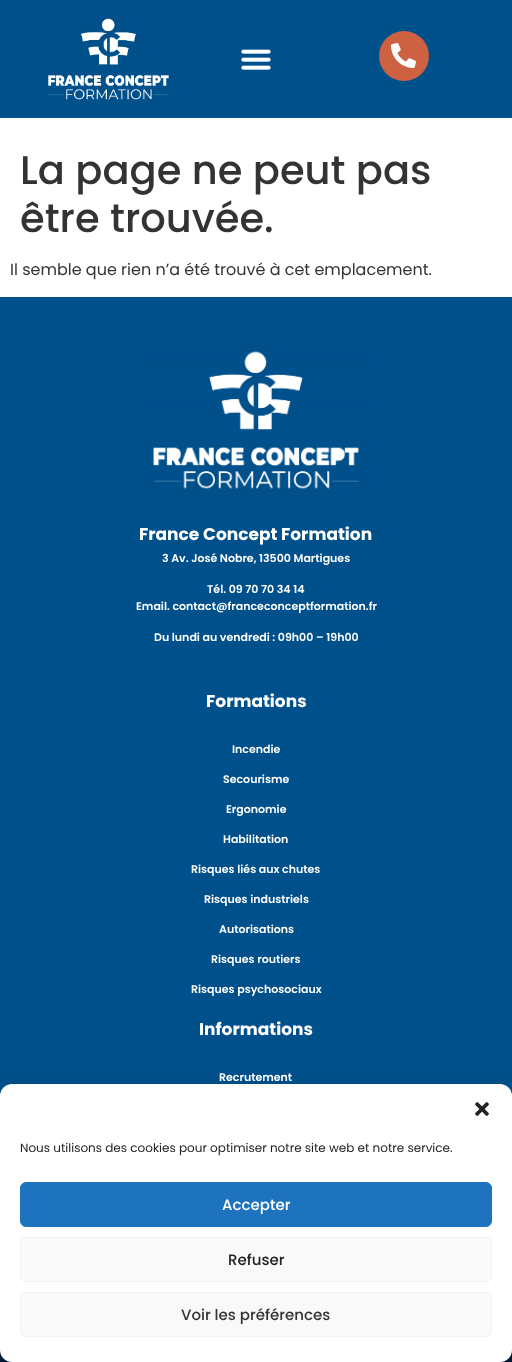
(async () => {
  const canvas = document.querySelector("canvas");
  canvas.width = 512;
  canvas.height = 1362;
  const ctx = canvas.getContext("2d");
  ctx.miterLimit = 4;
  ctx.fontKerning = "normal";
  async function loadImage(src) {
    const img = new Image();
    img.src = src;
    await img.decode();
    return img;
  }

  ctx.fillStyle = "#ffffff";
  ctx.fillRect(0, 0, 512, 1362);
  ctx.fillStyle = "#00508b";
  ctx.fillRect(0, 0, 512, 118);
  ctx.drawImage(await loadImage("img/1.png"), 48, 18, 121, 82);
  ctx.drawImage(await loadImage("img/2.png"), 241, 49, 30, 21);
  ctx.fillStyle = "#cf6143";
  ctx.beginPath();
  ctx.arc(404, 56, 25, 0, Math.PI * 2);
  ctx.fill();
  ctx.drawImage(await loadImage("img/3.png"), 391, 43, 25, 25);
  ctx.fillStyle = "#00508b";
  ctx.fillRect(0, 297, 512, 799);
  ctx.drawImage(await loadImage("img/4.png"), 153, 351, 206, 138);
  ctx.fillStyle = "#002040";
  ctx.fillRect(0, 1350, 512, 12);
  ctx.fillStyle = "rgba(0, 0, 0, 0.23)";
  ctx.filter = "blur(3px)";
  ctx.beginPath();
  ctx.roundRect(0, 1090, 512, 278, 12);
  ctx.fill();
  ctx.filter = "none";
  ctx.fillStyle = "rgba(0, 0, 0, 0.19)";
  ctx.filter = "blur(10px)";
  ctx.beginPath();
  ctx.roundRect(0, 1094, 512, 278, 12);
  ctx.fill();
  ctx.filter = "none";
  ctx.fillStyle = "#ffffff";
  ctx.beginPath();
  ctx.roundRect(0, 1084, 512, 278, 12);
  ctx.fill();
  ctx.drawImage(await loadImage("img/5.png"), 475, 1102, 14, 14);
  ctx.fillStyle = "#1e73be";
  ctx.beginPath();
  ctx.roundRect(20.5, 1182.5, 471, 44, 5.5);
  ctx.fill();
  ctx.strokeStyle = "#1e73be";
  ctx.stroke();
  ctx.fillStyle = "#f9f9f9";
  ctx.beginPath();
  ctx.roundRect(20.5, 1237.5, 471, 44, 5.5);
  ctx.fill();
  ctx.strokeStyle = "#f2f2f2";
  ctx.stroke();
  ctx.beginPath();
  ctx.roundRect(20.5, 1292.5, 471, 44, 5.5);
  ctx.fill();
  ctx.stroke();
  ctx.font = "500 40px Poppins";
  ctx.fillStyle = "#333333";
  ctx.fillText("La page ne peut pas", 20, 184);
  ctx.fillText("être trouvée.", 20, 232);
  ctx.font = "16px Poppins";
  ctx.fillText("Il semble que rien n’a été trouvé à cet emplacement.", 10, 275);
  ctx.font = "bold 17px Poppins";
  ctx.fillStyle = "#ffffff";
  ctx.fillText("France Concept Formation", 139, 540);
  ctx.font = "600 11px Poppins";
  for (const [text, x, y] of [
    ["3 Av. José Nobre, 13500 Martigues", 162, 562],
    ["Tél. 09 70 70 34 14", 207, 593],
    ["Email. contact@franceconceptformation.fr", 136, 610],
    ["Du lundi au vendredi : 09h00 – 19h00", 154, 641],
  ]) {
    ctx.fillText(text, x, y);
  }
  ctx.font = "bold 17px Poppins";
  ctx.fillText("Formations", 206, 707);
  ctx.font = "600 11px Poppins";
  for (const [text, x, y] of [
    ["Incendie", 232, 753],
    ["Secourisme", 223, 783],
    ["Ergonomie", 226, 813],
    ["Habilitation", 223, 843],
    ["Risques liés aux chutes", 191, 873],
    ["Risques industriels", 204, 903],
    ["Autorisations", 219, 933],
    ["Risques routiers", 211, 963],
    ["Risques psychosociaux", 191, 993],
  ]) {
    ctx.fillText(text, x, y);
  }
  ctx.font = "bold 17px Poppins";
  ctx.fillText("Informations", 199, 1035);
  ctx.font = "600 11px Poppins";
  ctx.fillText("Recrutement", 219, 1081);
  ctx.font = "12px Poppins";
  ctx.fillStyle = "#222222";
  ctx.fillText("Nous utilisons des cookies pour optimiser notre site web et notre service.", 20, 1152);
  ctx.font = "500 15px Poppins";
  ctx.fillStyle = "#ffffff";
  ctx.fillText("Accepter", 222, 1210);
  ctx.fillStyle = "#222222";
  ctx.fillText("Refuser", 228, 1265);
  ctx.fillStyle = "#333333";
  ctx.fillText("Voir les préférences", 181, 1320);
})();
